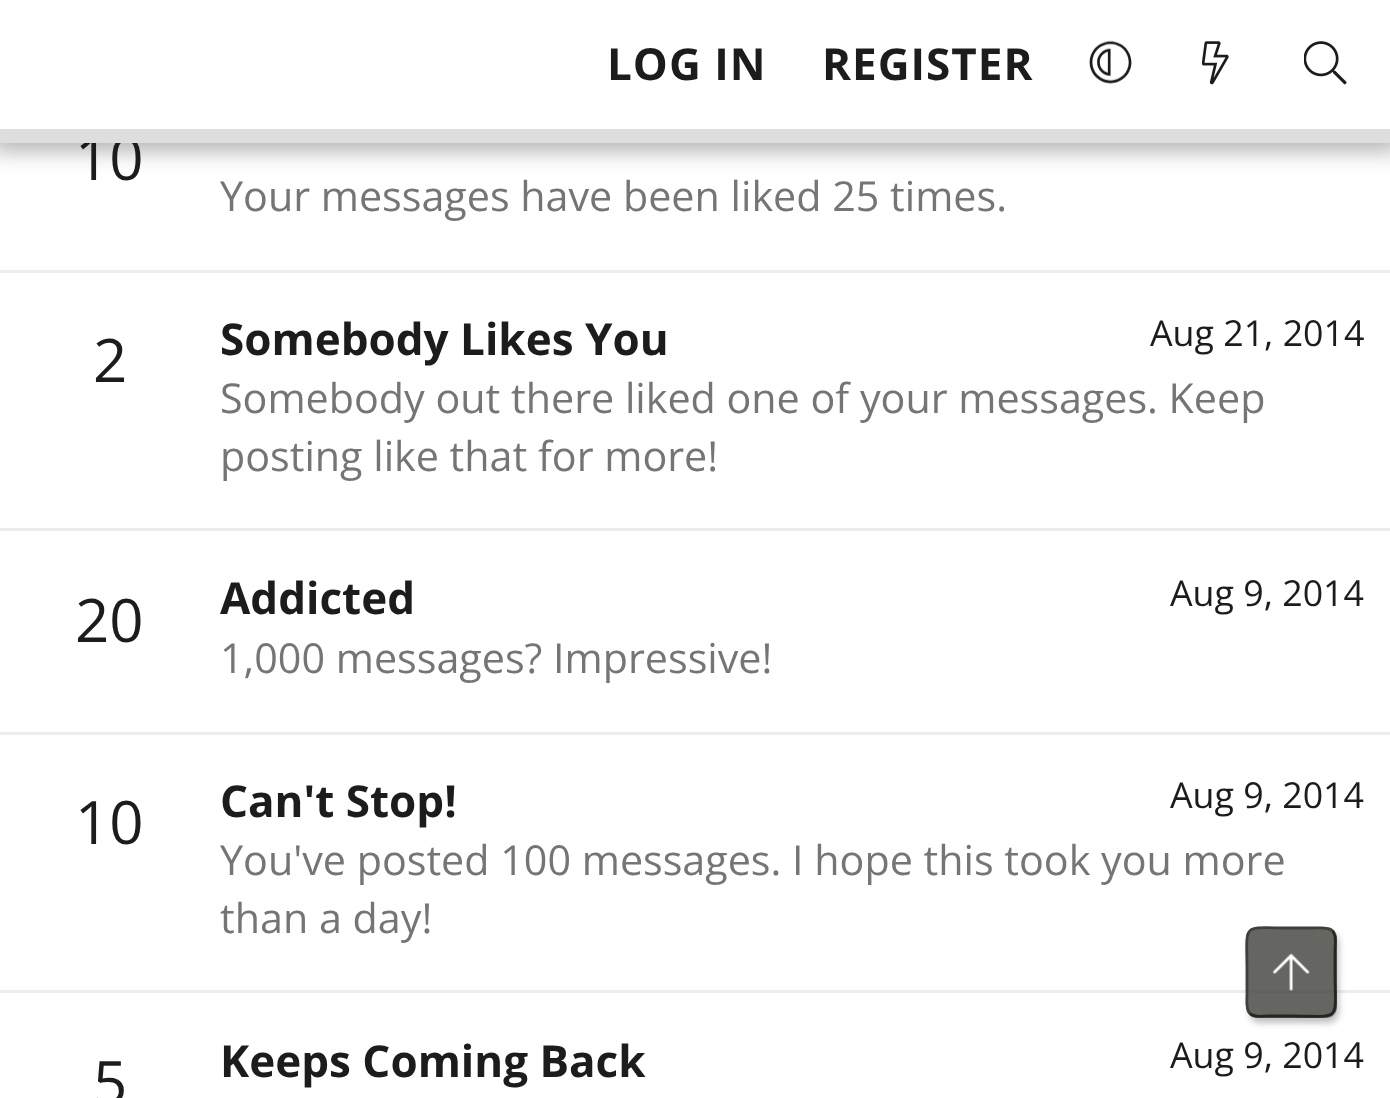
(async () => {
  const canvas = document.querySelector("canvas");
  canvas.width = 1390;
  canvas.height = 1098;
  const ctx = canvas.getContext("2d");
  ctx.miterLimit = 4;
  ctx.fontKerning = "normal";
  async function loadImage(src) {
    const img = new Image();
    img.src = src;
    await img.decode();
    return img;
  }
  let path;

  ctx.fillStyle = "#ffffff";
  ctx.fillRect(0, 0, 1390, 1098);
  ctx.fillStyle = "rgba(0, 0, 0, 0.3)";
  ctx.filter = "blur(11px)";
  ctx.beginPath();
  ctx.rect(-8, -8, 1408, 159);
  ctx.fill();
  ctx.filter = "none";
  ctx.fillStyle = "#ffffff";
  ctx.fillRect(0, 0, 1390, 129);
  ctx.drawImage(await loadImage("img/1.png"), 1089, 40, 43, 44);
  ctx.drawImage(await loadImage("img/2.png"), 1202, 41, 27, 44);
  ctx.drawImage(await loadImage("img/3.png"), 1304, 41, 43, 44);
  for (const [x, y, w, h, color] of [
    [0, 270, 1390, 3, "#ededed"],
    [0, 528, 1390, 3, "#ededed"],
    [0, 732, 1390, 3, "#ededed"],
    [0, 990, 1390, 3, "#ededed"],
  ]) {
    ctx.fillStyle = color;
    ctx.fillRect(x, y, w, h);
  }
  ctx.save();
  path = new Path2D("M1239 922H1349V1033H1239ZM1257 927H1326C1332 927 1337 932 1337 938V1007C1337 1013 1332 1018 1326 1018H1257C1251 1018 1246 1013 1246 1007V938C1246 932 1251 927 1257 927Z");
  ctx.clip(path, "evenodd");
  ctx.fillStyle = "rgba(0, 0, 0, 0.25)";
  ctx.filter = "blur(3px)";
  ctx.beginPath();
  ctx.roundRect(1249, 932, 90, 91, 11);
  ctx.fill();
  ctx.filter = "none";
  ctx.restore();
  ctx.fillStyle = "rgba(50, 51, 46, 0.75)";
  ctx.beginPath();
  ctx.roundRect(1246, 927, 91, 91, 11);
  ctx.fill();
  path = new Path2D("M1332.5 931C1337 935.5 1335 944 1335 949V972C1335 1023.5 1342.5 1016 1291 1016H1268C1263 1016 1254.5 1018 1250 1013.5");
  ctx.strokeStyle = "#252522";
  ctx.lineWidth = 2.8;
  ctx.stroke(path);
  path = new Path2D("M1250 1013.5C1245.5 1009 1247 1000.5 1247 995V972C1247 921 1240 928 1291 928H1314C1319.5 928 1328 926.5 1332.5 931");
  ctx.strokeStyle = "#3f403a";
  ctx.stroke(path);
  ctx.drawImage(await loadImage("img/4.png"), 1272, 953, 38, 38);
  ctx.letterSpacing = "1px";
  ctx.font = "bold 44px Open Sans";
  ctx.fillStyle = "#1c1c1c";
  ctx.fillText("LOG IN", 607, 80);
  ctx.fillText("REGISTER", 822, 80);
  ctx.letterSpacing = "0px";
  ctx.font = "60px Open Sans";
  ctx.fillText("10", 75, 180);
  ctx.fillStyle = "#dedede";
  ctx.fillRect(0, 129, 1390, 14);
  ctx.font = "41.25px Open Sans";
  ctx.fillStyle = "#757575";
  ctx.fillText("Your messages have been liked 25 times.", 220, 211);
  ctx.font = "60px Open Sans";
  ctx.fillStyle = "#1c1c1c";
  ctx.fillText("2", 93, 382);
  ctx.font = "bold 44px Open Sans";
  ctx.fillText("Somebody Likes You", 220, 355);
  ctx.font = "35.75px Open Sans";
  ctx.fillText("Aug 21, 2014", 1150, 346);
  ctx.font = "41.25px Open Sans";
  ctx.fillStyle = "#757575";
  ctx.fillText("Somebody out there liked one of your messages. Keep", 220, 413);
  ctx.fillText("posting like that for more!", 220, 471);
  ctx.font = "60px Open Sans";
  ctx.fillStyle = "#1c1c1c";
  ctx.fillText("20", 75, 642);
  ctx.font = "bold 44px Open Sans";
  ctx.fillText("Addicted", 220, 614);
  ctx.font = "35.75px Open Sans";
  ctx.fillText("Aug 9, 2014", 1170, 606);
  ctx.font = "41.25px Open Sans";
  ctx.fillStyle = "#757575";
  ctx.fillText("1,000 messages? Impressive!", 220, 673);
  ctx.font = "60px Open Sans";
  ctx.fillStyle = "#1c1c1c";
  ctx.fillText("10", 75, 844);
  ctx.font = "bold 44px Open Sans";
  ctx.fillText("Can't Stop!", 220, 817);
  ctx.font = "35.75px Open Sans";
  ctx.fillText("Aug 9, 2014", 1170, 808);
  ctx.font = "41.25px Open Sans";
  ctx.fillStyle = "#757575";
  ctx.fillText("You've posted 100 messages. I hope this took you more", 220, 875);
  ctx.fillText("than a day!", 220, 933);
  ctx.font = "60px Open Sans";
  ctx.fillStyle = "#1c1c1c";
  ctx.fillText("5", 93, 1104);
  ctx.font = "bold 44px Open Sans";
  ctx.fillText("Keeps Coming Back", 220, 1077);
  ctx.font = "35.75px Open Sans";
  ctx.fillText("Aug 9, 2014", 1170, 1068);
})();
